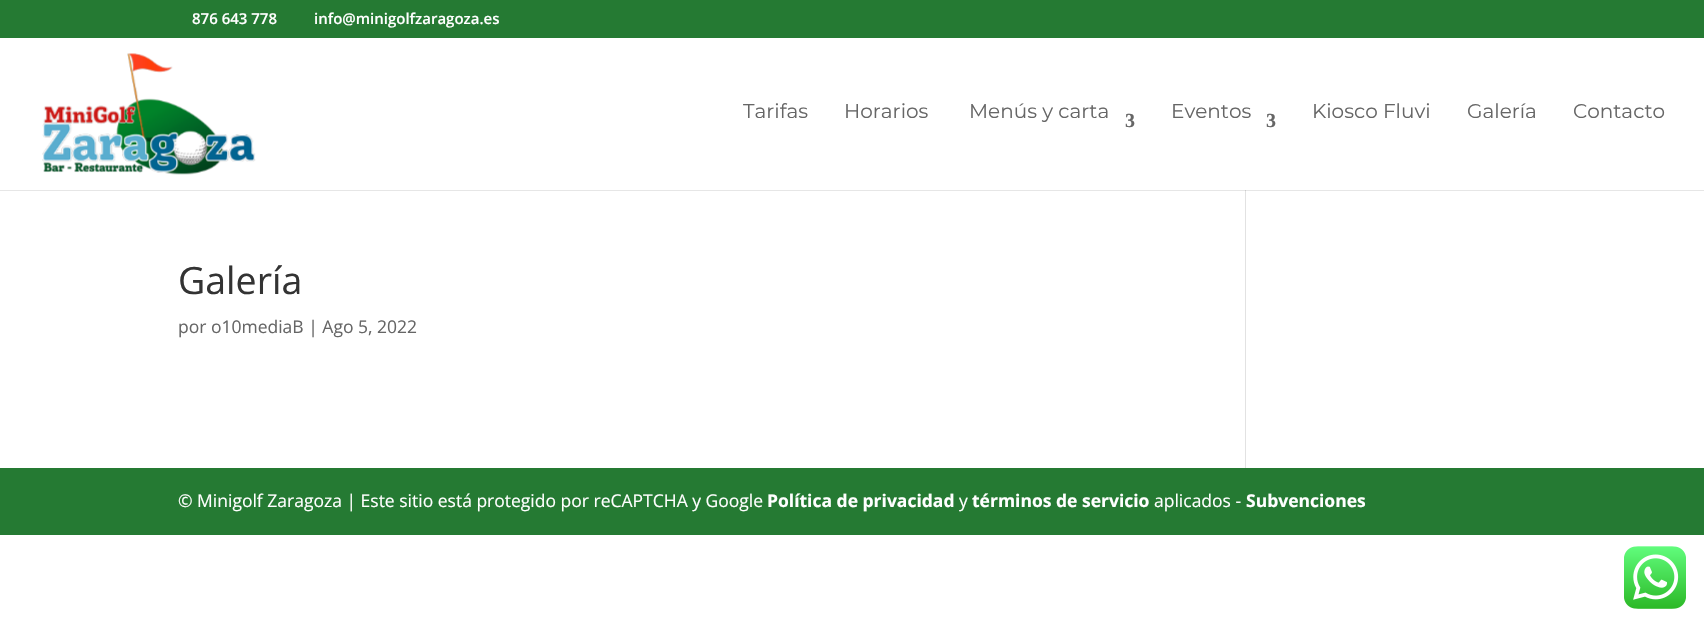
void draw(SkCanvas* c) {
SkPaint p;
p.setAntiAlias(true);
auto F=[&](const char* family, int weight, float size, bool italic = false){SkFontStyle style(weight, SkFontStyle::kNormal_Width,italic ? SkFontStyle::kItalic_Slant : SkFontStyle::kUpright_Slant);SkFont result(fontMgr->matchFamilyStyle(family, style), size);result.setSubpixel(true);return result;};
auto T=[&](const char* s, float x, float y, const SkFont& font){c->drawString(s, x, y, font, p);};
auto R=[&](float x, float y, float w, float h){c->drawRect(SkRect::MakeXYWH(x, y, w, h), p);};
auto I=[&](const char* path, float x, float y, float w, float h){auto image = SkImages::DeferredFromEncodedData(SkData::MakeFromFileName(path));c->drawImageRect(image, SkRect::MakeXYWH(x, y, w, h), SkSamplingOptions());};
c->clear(0xffffffff);
p.setColor(0xffe6e6e6);
R(0,190,1704,1);
p.setColor(0xff257a33);
R(0,0,1704,38);
auto f1 = F("Open Sans",600,15);
p.setColor(0xffffffff);
T("876 643 778",192,24,f1);
T("info@minigolfzaragoza.es",314,24,f1);
p.setColor(0xffe2e2e2);
R(1245,189,1,279);
p.setColor(0xffffffff);
R(1245,189,1,1);
I("1.png",42,53,214,122);
auto f2 = F("Montserrat",400,20);
p.setColor(0xff666666);
T("Tarifas",743,118,f2);
T("Horarios",844,118,f2);
T("Menús y carta",969,118,f2);
auto f3 = F("Liberation Serif",700,20);
T("3",1125,127,f3);
T("Eventos",1171,118,f2);
T("3",1266,127,f3);
T("Kiosco Fluvi",1312,118,f2);
T("Galería",1467,118,f2);
T("Contacto",1573,118,f2);
auto f4 = F("Open Sans",400,37.5);
p.setColor(0xff333333);
T("Galería",178,294,f4);
auto f5 = F("Open Sans",400,17.5);
p.setColor(0xff666666);
T("por o10mediaB | Ago 5, 2022",178,333,f5);
p.setColor(0xffcbcbcb);
R(1245,190,1,1);
p.setColor(0xff257a33);
R(0,468,1704,67);
p.setColor(0xffffffff);
T("© Minigolf Zaragoza | Este sitio está protegido por reCAPTCHA y Google",178,507,f5);
auto f6 = F("Open Sans",700,17.5);
T("Política de privacidad",767,507,f6);
T("y",959,507,f5);
T("términos de servicio",972,507,f6);
T("aplicados -",1154,507,f5);
T("Subvenciones",1246,507,f6);
I("2.png",1624,546,62,63);
}
